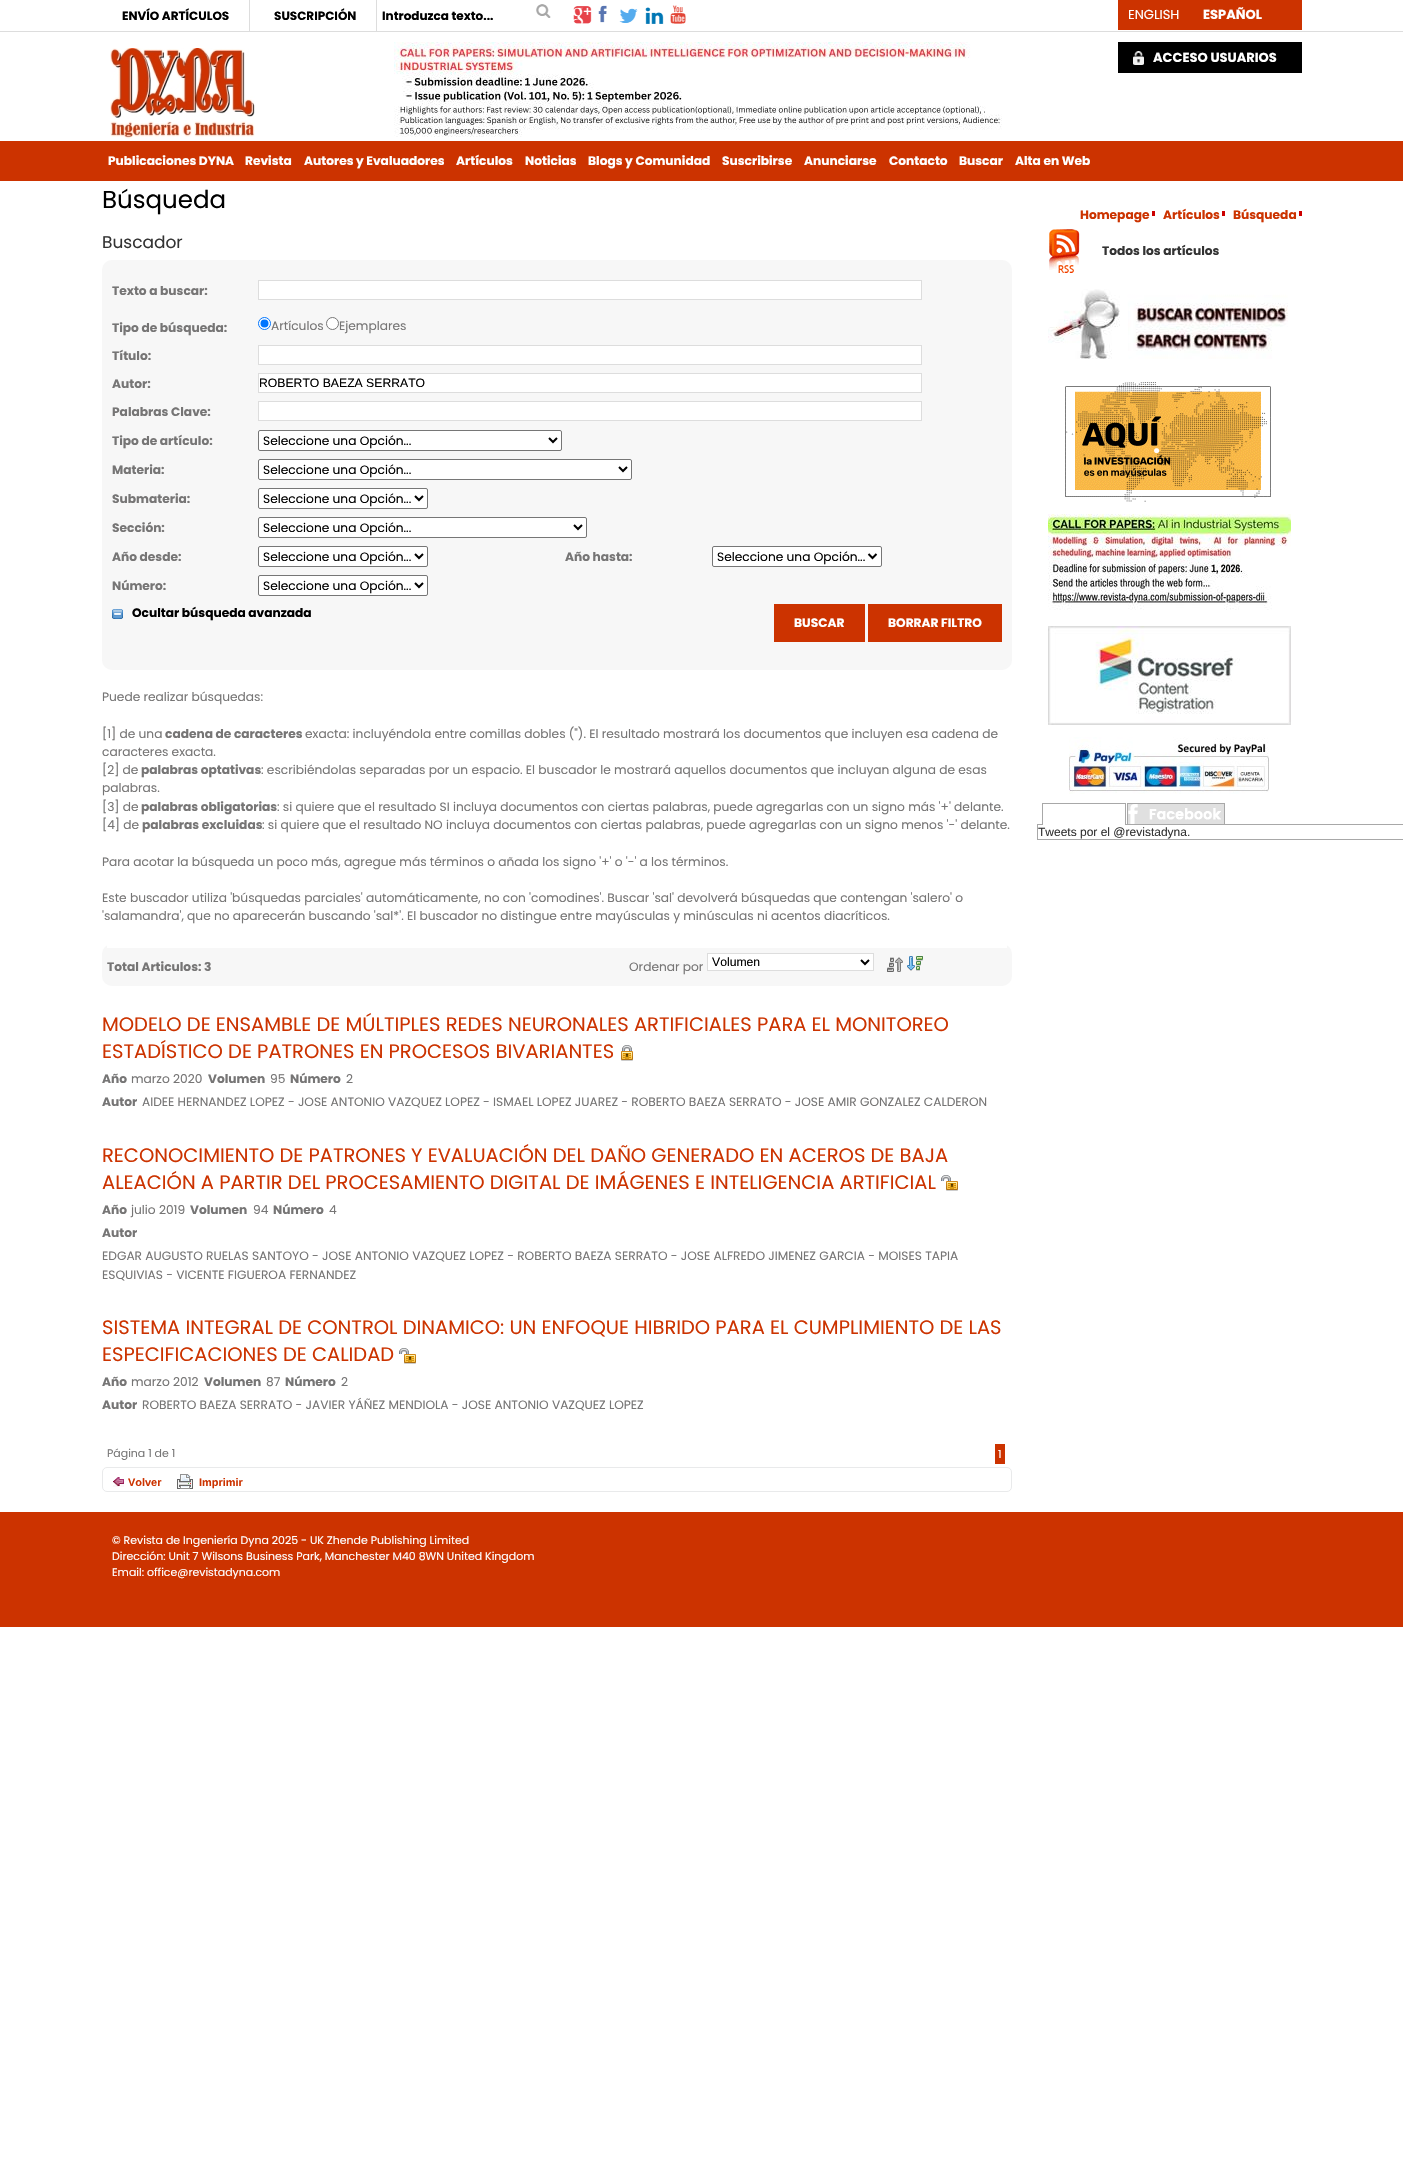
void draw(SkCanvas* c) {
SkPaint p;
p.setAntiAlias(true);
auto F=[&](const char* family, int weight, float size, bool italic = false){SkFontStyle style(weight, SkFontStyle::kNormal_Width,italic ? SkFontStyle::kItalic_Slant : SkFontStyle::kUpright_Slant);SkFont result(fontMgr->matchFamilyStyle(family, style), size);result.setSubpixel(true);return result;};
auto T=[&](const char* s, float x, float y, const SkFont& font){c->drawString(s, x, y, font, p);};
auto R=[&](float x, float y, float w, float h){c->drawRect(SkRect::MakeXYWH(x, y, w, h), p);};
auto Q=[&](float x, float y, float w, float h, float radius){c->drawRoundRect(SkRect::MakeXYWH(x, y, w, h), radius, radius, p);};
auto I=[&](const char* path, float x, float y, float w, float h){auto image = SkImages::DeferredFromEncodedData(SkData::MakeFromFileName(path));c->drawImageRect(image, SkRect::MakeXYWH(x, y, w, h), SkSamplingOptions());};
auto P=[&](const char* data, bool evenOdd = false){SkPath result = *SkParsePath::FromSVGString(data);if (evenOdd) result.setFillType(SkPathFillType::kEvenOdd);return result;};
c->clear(0xffffffff);
p.setColor(0xffdddddd);
R(0,31,1403,1);
R(249,0,1,31);
auto f1 = F("Poppins",700,12);
p.setColor(0xff000000);
T("ENVÍO ARTÍCULOS",122,20,f1);
p.setColor(0xffdddddd);
R(376,0,1,31);
p.setColor(0xff000000);
T("SUSCRIPCIÓN",274,20,f1);
T("Introduzca texto...",382,20,f1);
I("1.png",536,4,15,14);
I("2.png",573,6,19,18);
I("3.png",598,5,9,18);
I("4.png",619,8,19,15);
I("5.png",645,7,19,17);
I("6.png",670,5,16,19);
p.setColor(0xffcc3300);
R(1118,0,184,30);
auto f2 = F("Poppins",400,13);
p.setColor(0xffffffff);
T("ENGLISH",1128,19,f2);
auto f3 = F("Poppins",700,13);
T("ESPAÑOL",1203,19,f3);
p.setColor(0xff000000);
R(1118,42,184,31);
I("7.png",1133,51,11,14);
p.setColor(0xffffffff);
T("ACCESO USUARIOS",1153,62,f3);
I("8.png",110,48,145,91);
I("9.png",394,42,608,95);
p.setColor(0xffcc3300);
R(0,141,1403,40);
auto f4 = F("Poppins",700,12.2);
p.setColor(0xffffffff);
T("Publicaciones DYNA",108,165,f4);
T("Revista",245,165,f4);
T("Autores y Evaluadores",304,165,f4);
T("Artículos",456,165,f4);
T("Noticias",525,165,f4);
T("Blogs y Comunidad",588,165,f4);
T("Suscribirse",722,165,f4);
T("Anunciarse",804,165,f4);
T("Contacto",889,165,f4);
T("Buscar",959,165,f4);
T("Alta en Web",1015,165,f4);
auto f5 = F("Poppins",400,24.5);
p.setColor(0xff000000);
T("Búsqueda",102,208,f5);
p.setColor(0xffcc3300);
T("Homepage",1080,219,f4);
p.setColor(0xffcc0000);
R(1152,211,3,5);
p.setColor(0xffcc3300);
T("Artículos",1163,219,f4);
p.setColor(0xffcc0000);
R(1222,211,3,5);
p.setColor(0xffcc3300);
T("Búsqueda",1233,219,f4);
p.setColor(0xffcc0000);
R(1299,211,3,5);
auto f6 = F("Poppins",400,17);
p.setColor(0xff333333);
T("Buscador",102,248,f6);
p.setColor(0xfff7f7f7);
Q(102,260,910,410,10);
p.setColor(0xff767575);
T("Texto a buscar:",112,295,f4);
p.setColor(0xffffffff);
c->drawRect(SkRect::MakeXYWH(258.5,280.5,663,19),p);
p.setStroke(true);
p.setStrokeWidth(1);
p.setColor(0xffdddddd);
c->drawRect(SkRect::MakeXYWH(258.5,280.5,663,19),p);
p.setStroke(false);
p.setColor(0xff767575);
T("Tipo de búsqueda:",112,332,f4);
p.setColor(0xffffffff);
c->drawCircle(264.5,323.5,6,p);
p.setStroke(true);
p.setColor(0xff0075ff);
c->drawCircle(264.5,323.5,6,p);
p.setStroke(false);
c->drawCircle(264.5,323.5,4,p);
auto f7 = F("Poppins",400,12.2);
p.setColor(0xff767575);
T("Artículos",271,330,f7);
p.setColor(0xffffffff);
c->drawCircle(332.5,323.5,6,p);
p.setStroke(true);
p.setColor(0xff767676);
c->drawCircle(332.5,323.5,6,p);
p.setStroke(false);
p.setColor(0xff767575);
T("Ejemplares",339,330,f7);
T("Título:",112,360,f4);
p.setColor(0xffffffff);
c->drawRect(SkRect::MakeXYWH(258.5,345.5,663,19),p);
p.setStroke(true);
p.setColor(0xffdddddd);
c->drawRect(SkRect::MakeXYWH(258.5,345.5,663,19),p);
p.setStroke(false);
p.setColor(0xff767575);
T("Autor:",112,388,f4);
p.setColor(0xffffffff);
c->drawRect(SkRect::MakeXYWH(258.5,373.5,663,19),p);
p.setStroke(true);
p.setColor(0xffdddddd);
c->drawRect(SkRect::MakeXYWH(258.5,373.5,663,19),p);
auto f8 = F("Liberation Sans",400,12.2);
p.setStroke(false);
p.setColor(0xff000000);
T("ROBERTO BAEZA SERRATO",259,387,f8);
p.setColor(0xff767575);
T("Palabras Clave:",112,416,f4);
p.setColor(0xffffffff);
c->drawRect(SkRect::MakeXYWH(258.5,401.5,663,19),p);
p.setStroke(true);
p.setColor(0xffdddddd);
c->drawRect(SkRect::MakeXYWH(258.5,401.5,663,19),p);
p.setStroke(false);
p.setColor(0xff767575);
T("Tipo de artículo:",112,445,f4);
p.setColor(0xffffffff);
c->drawRoundRect(SkRect::MakeXYWH(258.5,430.5,303,20),1.5,1.5,p);
p.setStroke(true);
p.setColor(0xff767676);
c->drawRoundRect(SkRect::MakeXYWH(258.5,430.5,303,20),1.5,1.5,p);
p.setStrokeWidth(2);
p.setColor(0xff000000);
c->drawPath(P("M549 438l4 4l4-4"),p);
p.setStroke(false);
T("Seleccione una Opción...",263,445,f7);
p.setColor(0xff767575);
T("Materia:",112,474,f4);
p.setColor(0xffffffff);
c->drawRoundRect(SkRect::MakeXYWH(258.5,459.5,373,20),1.5,1.5,p);
p.setStroke(true);
p.setStrokeWidth(1);
p.setColor(0xff767676);
c->drawRoundRect(SkRect::MakeXYWH(258.5,459.5,373,20),1.5,1.5,p);
p.setStrokeWidth(2);
p.setColor(0xff000000);
c->drawPath(P("M619 467l4 4l4-4"),p);
p.setStroke(false);
T("Seleccione una Opción...",263,474,f7);
p.setColor(0xff767575);
T("Submateria:",112,503,f4);
p.setColor(0xffffffff);
c->drawRoundRect(SkRect::MakeXYWH(258.5,488.5,169,20),1.5,1.5,p);
p.setStroke(true);
p.setStrokeWidth(1);
p.setColor(0xff767676);
c->drawRoundRect(SkRect::MakeXYWH(258.5,488.5,169,20),1.5,1.5,p);
p.setStrokeWidth(2);
p.setColor(0xff000000);
c->drawPath(P("M415 496l4 4l4-4"),p);
p.setStroke(false);
T("Seleccione una Opción...",263,503,f7);
p.setColor(0xff767575);
T("Sección:",112,532,f4);
p.setColor(0xffffffff);
c->drawRoundRect(SkRect::MakeXYWH(258.5,517.5,328,20),1.5,1.5,p);
p.setStroke(true);
p.setStrokeWidth(1);
p.setColor(0xff767676);
c->drawRoundRect(SkRect::MakeXYWH(258.5,517.5,328,20),1.5,1.5,p);
p.setStrokeWidth(2);
p.setColor(0xff000000);
c->drawPath(P("M574 525l4 4l4-4"),p);
p.setStroke(false);
T("Seleccione una Opción...",263,532,f7);
p.setColor(0xff767575);
T("Año desde:",112,561,f4);
p.setColor(0xffffffff);
c->drawRoundRect(SkRect::MakeXYWH(258.5,546.5,169,20),1.5,1.5,p);
p.setStroke(true);
p.setStrokeWidth(1);
p.setColor(0xff767676);
c->drawRoundRect(SkRect::MakeXYWH(258.5,546.5,169,20),1.5,1.5,p);
p.setStrokeWidth(2);
p.setColor(0xff000000);
c->drawPath(P("M415 554l4 4l4-4"),p);
p.setStroke(false);
T("Seleccione una Opción...",263,561,f7);
p.setColor(0xff767575);
T("Año hasta:",565,561,f4);
p.setColor(0xffffffff);
c->drawRoundRect(SkRect::MakeXYWH(712.5,546.5,169,20),1.5,1.5,p);
p.setStroke(true);
p.setStrokeWidth(1);
p.setColor(0xff767676);
c->drawRoundRect(SkRect::MakeXYWH(712.5,546.5,169,20),1.5,1.5,p);
p.setStrokeWidth(2);
p.setColor(0xff000000);
c->drawPath(P("M868.5 554l4 4l4-4"),p);
p.setStroke(false);
T("Seleccione una Opción...",717,561,f7);
p.setColor(0xff767575);
T("Número:",112,590,f4);
p.setColor(0xffffffff);
c->drawRoundRect(SkRect::MakeXYWH(258.5,575.5,169,20),1.5,1.5,p);
p.setStroke(true);
p.setStrokeWidth(1);
p.setColor(0xff767676);
c->drawRoundRect(SkRect::MakeXYWH(258.5,575.5,169,20),1.5,1.5,p);
p.setStrokeWidth(2);
p.setColor(0xff000000);
c->drawPath(P("M415 583l4 4l4-4"),p);
p.setStroke(false);
T("Seleccione una Opción...",263,590,f7);
I("10.png",112,609,11,10);
T("Ocultar búsqueda avanzada",132,617,f4);
p.setColor(0xffcc3300);
R(774,604,91,38);
p.setColor(0xffffffff);
T("BUSCAR",794,627,f4);
p.setColor(0xffcc3300);
R(868,604,134,38);
p.setColor(0xffffffff);
T("BORRAR FILTRO",888,627,f4);
p.setColor(0xff767575);
T("Puede realizar búsquedas:",102,701,f7);
T("[1] de una",102,738,f7);
T("cadena de caracteres",165,738,f4);
T("exacta: incluyéndola entre comillas dobles (\"). El resultado mostrará los documentos que incluyen esa cadena de",305,738,f7);
T("caracteres exacta.",102,756,f7);
T("[2] de",102,774,f7);
T("palabras optativas",141,774,f4);
T(": escribiéndolas separadas por un espacio. El buscador le mostrará aquellos documentos que incluyan alguna de esas",261,774,f7);
T("palabras.",102,792,f7);
T("[3] de",102,811,f7);
T("palabras obligatorias",141,811,f4);
T(": si quiere que el resultado SI incluya documentos con ciertas palabras, puede agregarlas con un signo más '+' delante.",277,811,f7);
T("[4] de",102,829,f7);
T("palabras excluidas",142,829,f4);
T(": si quiere que el resultado NO incluya documentos con ciertas palabras, puede agregarlas con un signo menos '-' delante.",262,829,f7);
T("Para acotar la búsqueda un poco más, agregue más términos o añada los signo '+' o '-' a los términos.",102,866,f7);
T("Este buscador utiliza 'búsquedas parciales' automáticamente, no con 'comodines'. Buscar 'sal' devolverá búsquedas que contengan 'salero' o",102,902,f7);
T("'salamandra', que no aparecerán buscando 'sal*'. El buscador no distingue entre mayúsculas y minúsculas ni acentos diacríticos.",102,920,f7);
p.setColor(0xfff7f7f7);
Q(102,944,910,42,10);
p.setColor(0xffffffff);
R(107,944,900,4);
p.setColor(0xff767575);
T("Total Articulos: 3",107,971,f4);
T("Ordenar por",629,971,f7);
p.setColor(0xffffffff);
c->drawRect(SkRect::MakeXYWH(707.5,953.5,166,17),p);
p.setStroke(true);
p.setStrokeWidth(1);
p.setColor(0xffdddddd);
c->drawRect(SkRect::MakeXYWH(707.5,953.5,166,17),p);
p.setStrokeWidth(2);
p.setColor(0xff000000);
c->drawPath(P("M861 960l4 4l4-4"),p);
p.setStroke(false);
T("Volumen",712,966,f8);
I("11.png",887,957,16,15);
I("12.png",907,956,16,15);
auto f9 = F("Poppins",400,19.5);
p.setColor(0xffcc3300);
T("MODELO DE ENSAMBLE DE MÚLTIPLES REDES NEURONALES ARTIFICIALES PARA EL MONITOREO",102,1031,f9);
T("ESTADÍSTICO DE PATRONES EN PROCESOS BIVARIANTES",102,1058,f9);
I("13.png",621,1045,12,16);
p.setColor(0xff767575);
T("Año",102,1083,f4);
T("marzo 2020",131,1083,f7);
T("Volumen",208,1083,f4);
T("95",270,1083,f7);
T("Número",290,1083,f4);
T("2",346,1083,f7);
T("Autor",102,1106,f4);
T("AIDEE HERNANDEZ LOPEZ - JOSE ANTONIO VAZQUEZ LOPEZ - ISMAEL LOPEZ JUAREZ - ROBERTO BAEZA SERRATO - JOSE AMIR GONZALEZ CALDERON",142,1106,f7);
p.setColor(0xffcc3300);
T("RECONOCIMIENTO DE PATRONES Y EVALUACIÓN DEL DAÑO GENERADO EN ACEROS DE BAJA",102,1162,f9);
T("ALEACIÓN A PARTIR DEL PROCESAMIENTO DIGITAL DE IMÁGENES E INTELIGENCIA ARTIFICIAL",102,1189,f9);
I("14.png",941,1175,17,16);
p.setColor(0xff767575);
T("Año",102,1214,f4);
T("julio 2019",131,1214,f7);
T("Volumen",190,1214,f4);
T("94",253,1214,f7);
T("Número",273,1214,f4);
T("4",329,1214,f7);
T("Autor",102,1237,f4);
T("EDGAR AUGUSTO RUELAS SANTOYO - JOSE ANTONIO VAZQUEZ LOPEZ - ROBERTO BAEZA SERRATO - JOSE ALFREDO JIMENEZ GARCIA - MOISES TAPIA",102,1260,f7);
T("ESQUIVIAS - VICENTE FIGUEROA FERNANDEZ",102,1279,f7);
p.setColor(0xffcc3300);
T("SISTEMA INTEGRAL DE CONTROL DINAMICO: UN ENFOQUE HIBRIDO PARA EL CUMPLIMIENTO DE LAS",102,1334,f9);
T("ESPECIFICACIONES DE CALIDAD",102,1361,f9);
I("14.png",399,1348,17,16);
p.setColor(0xff767575);
T("Año",102,1386,f4);
T("marzo 2012",131,1386,f7);
T("Volumen",204,1386,f4);
T("87",266,1386,f7);
T("Número",285,1386,f4);
T("2",341,1386,f7);
T("Autor",102,1409,f4);
T("ROBERTO BAEZA SERRATO - JAVIER YÁÑEZ MENDIOLA - JOSE ANTONIO VAZQUEZ LOPEZ",142,1409,f7);
auto f10 = F("Poppins",400,10.95);
T("Página 1 de 1",107,1457,f10);
p.setColor(0xffcc3300);
R(995,1444,10,20);
p.setColor(0xffffffff);
T("1",998,1458,f10);
p.setStroke(true);
p.setStrokeWidth(1);
p.setColor(0xffe9eaeb);
c->drawRoundRect(SkRect::MakeXYWH(102.5,1467.5,909,24),4.5,4.5,p);
I("15.png",113,1477,11,10);
auto f11 = F("Liberation Sans",700,10.95);
p.setStroke(false);
p.setColor(0xffcc3300);
T("Volver",128,1486,f11);
I("16.png",177,1474,16,15);
T("Imprimir",199,1486,f11);
I("17.png",1049,229,31,44);
p.setColor(0xff333333);
T("Todos los artículos",1102,255,f4);
I("18.png",1048,289,240,70);
I("19.png",1065,382,206,120);
I("20.png",1048,514,243,96);
I("21.png",1048,626,243,99);
I("22.png",1069,737,200,57);
p.setColor(0xffa8a8a8);
R(1037,824,5,1);
R(1042,803,84,1);
R(1125,803,1,22);
R(1042,803,1,22);
R(1126,824,1,1);
p.setColor(0xffe0e0e0);
c->drawRect(SkRect::MakeXYWH(1127.5,803.5,97,21),p);
p.setStroke(true);
p.setColor(0xffa8a8a8);
c->drawRect(SkRect::MakeXYWH(1127.5,803.5,97,21),p);
I("23.png",1128,804,93,20);
p.setStroke(false);
R(1225,824,178,1);
R(1037,839,366,1);
R(1037,825,1,15);
auto f12 = F("Liberation Sans",400,12);
p.setColor(0xff333333);
T("Tweets por el @revistadyna.",1038,836,f12);
p.setColor(0xffcc3300);
R(0,1512,1403,115);
p.setColor(0xffffffff);
T("© Revista de Ingeniería Dyna 2025 - UK Zhende Publishing Limited",112,1544,f10);
T("Dirección: Unit 7 Wilsons Business Park, Manchester M40 8WN United Kingdom",112,1560,f10);
T("Email: office@revistadyna.com",112,1576,f10);
}
